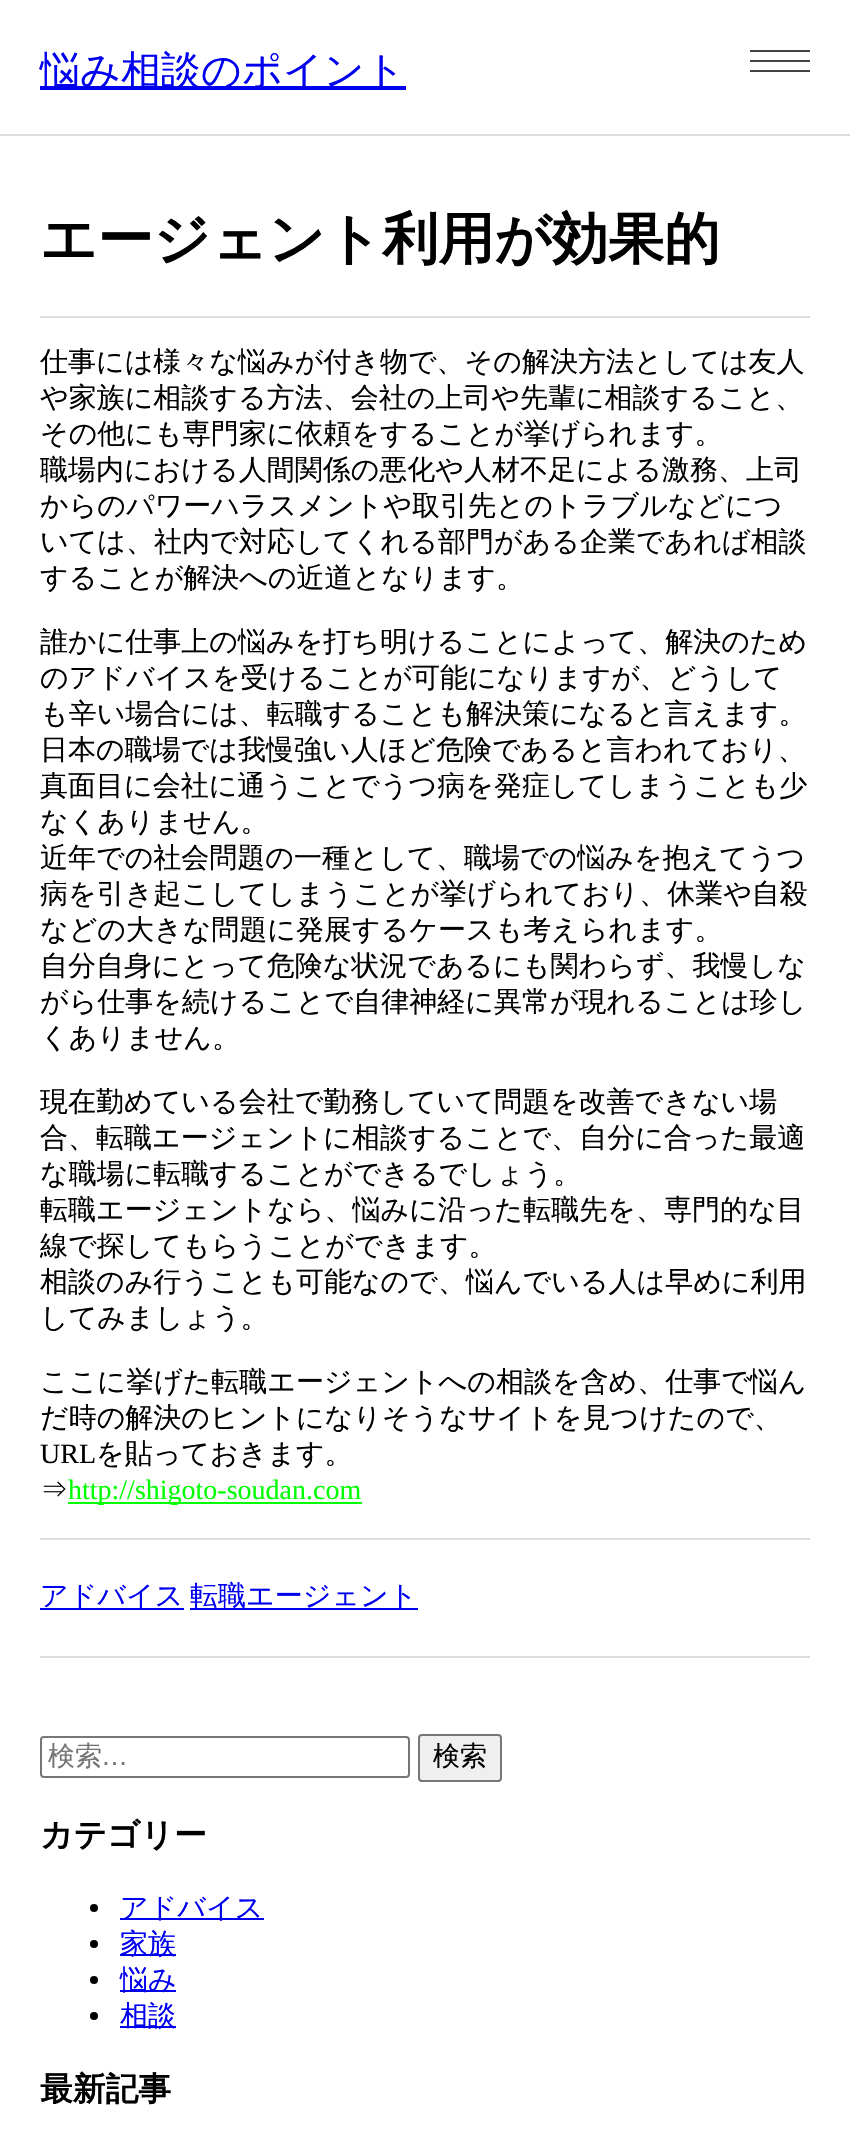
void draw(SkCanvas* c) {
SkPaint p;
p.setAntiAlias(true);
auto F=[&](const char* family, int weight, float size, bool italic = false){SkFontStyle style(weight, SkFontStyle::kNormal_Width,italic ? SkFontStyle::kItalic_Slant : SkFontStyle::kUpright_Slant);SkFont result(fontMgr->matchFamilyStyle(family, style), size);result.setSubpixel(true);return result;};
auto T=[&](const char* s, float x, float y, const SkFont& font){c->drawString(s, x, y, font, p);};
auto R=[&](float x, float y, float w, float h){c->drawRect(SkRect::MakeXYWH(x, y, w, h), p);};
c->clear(0xffffffff);
p.setColor(0xffdddddd);
R(0,134,850,2);
p.setColor(0xff0000ee);
R(40,86,366,4);
auto f1 = F("WenQuanYi Zen Hei",500,40);
T("悩み相談のポイント",40,84,f1);
p.setColor(0xff444444);
R(750,60,60,2);
R(750,50,60,2);
R(750,70,60,2);
p.setColor(0xffdddddd);
R(40,1656,770,2);
R(40,316,770,2);
auto f2 = F("WenQuanYi Zen Hei",700,56);
p.setColor(0xff000000);
T("エージェント利用が効果的",40,258,f2);
auto f3 = F("WenQuanYi Zen Hei",500,28);
T("仕事には様々な悩みが付き物で、その解決方法としては友人",40,371,f3);
T("や家族に相談する方法、会社の上司や先輩に相談すること、",40,407,f3);
T("その他にも専門家に依頼をすることが挙げられます。",40,443,f3);
T("職場内における人間関係の悪化や人材不足による激務、上司",40,479,f3);
T("からのパワーハラスメントや取引先とのトラブルなどにつ",40,515,f3);
T("いては、社内で対応してくれる部門がある企業であれば相談",40,551,f3);
T("することが解決への近道となります。",40,587,f3);
T("誰かに仕事上の悩みを打ち明けることによって、解決のため",40,651,f3);
T("のアドバイスを受けることが可能になりますが、どうして",40,687,f3);
T("も辛い場合には、転職することも解決策になると言えます。",40,723,f3);
T("日本の職場では我慢強い人ほど危険であると言われており、",40,759,f3);
T("真面目に会社に通うことでうつ病を発症してしまうことも少",40,795,f3);
T("なくありません。",40,831,f3);
T("近年での社会問題の一種として、職場での悩みを抱えてうつ",40,867,f3);
T("病を引き起こしてしまうことが挙げられており、休業や自殺",40,903,f3);
T("などの大きな問題に発展するケースも考えられます。",40,939,f3);
T("自分自身にとって危険な状況であるにも関わらず、我慢しな",40,975,f3);
T("がら仕事を続けることで自律神経に異常が現れることは珍し",40,1011,f3);
T("くありません。",40,1047,f3);
T("現在勤めている会社で勤務していて問題を改善できない場",40,1111,f3);
T("合、転職エージェントに相談することで、自分に合った最適",40,1147,f3);
T("な職場に転職することができるでしょう。",40,1183,f3);
T("転職エージェントなら、悩みに沿った転職先を、専門的な目",40,1219,f3);
T("線で探してもらうことができます。",40,1255,f3);
T("相談のみ行うことも可能なので、悩んでいる人は早めに利用",40,1291,f3);
T("してみましょう。",40,1327,f3);
T("ここに挙げた転職エージェントへの相談を含め、仕事で悩ん",40,1391,f3);
T("だ時の解決のヒントになりそうなサイトを見つけたので、",40,1427,f3);
auto f4 = F("Liberation Serif",400,28);
T("URL",40,1463,f4);
T("を貼っておきます。",96,1463,f3);
T("⇒",40,1499,f3);
p.setColor(0xff00ff00);
R(68,1502,294,2);
T("http://shigoto-soudan.com",68,1499,f4);
p.setColor(0xffdddddd);
R(40,1538,770,2);
p.setColor(0xff0000ee);
R(40,1608,144,2);
T("アドバイス",40,1605,f3);
R(190,1608,228,2);
T("転職エージェント",190,1605,f3);
p.setStroke(true);
p.setStrokeWidth(2);
p.setColor(0xff767676);
c->drawRoundRect(SkRect::MakeXYWH(41,1737,368,40),3,3,p);
auto f5 = F("WenQuanYi Zen Hei",500,27);
p.setStroke(false);
p.setColor(0xff757575);
T("検索",48,1765,f5);
auto f6 = F("Liberation Sans",400,27);
T("…",101,1765,f6);
p.setColor(0xffefefef);
c->drawRoundRect(SkRect::MakeXYWH(419,1735,82,46),3,3,p);
p.setStroke(true);
p.setColor(0xff767676);
c->drawRoundRect(SkRect::MakeXYWH(419,1735,82,46),3,3,p);
p.setStroke(false);
p.setColor(0xff000000);
T("検索",433,1765,f5);
auto f7 = F("WenQuanYi Zen Hei",700,32.75);
T("カテゴリー",40,1846,f7);
c->drawCircle(94,1908,4,p);
p.setColor(0xff0000ee);
R(120,1918,144,2);
T("アドバイス",120,1917,f3);
p.setColor(0xff000000);
c->drawCircle(94,1944,4,p);
p.setColor(0xff0000ee);
R(120,1954,56,2);
T("家族",120,1953,f3);
p.setColor(0xff000000);
c->drawCircle(94,1980,4,p);
p.setColor(0xff0000ee);
R(120,1990,56,2);
T("悩み",120,1989,f3);
p.setColor(0xff000000);
c->drawCircle(94,2016,4,p);
p.setColor(0xff0000ee);
R(120,2026,56,2);
T("相談",120,2025,f3);
p.setColor(0xff000000);
T("最新記事",40,2100,f7);
}
